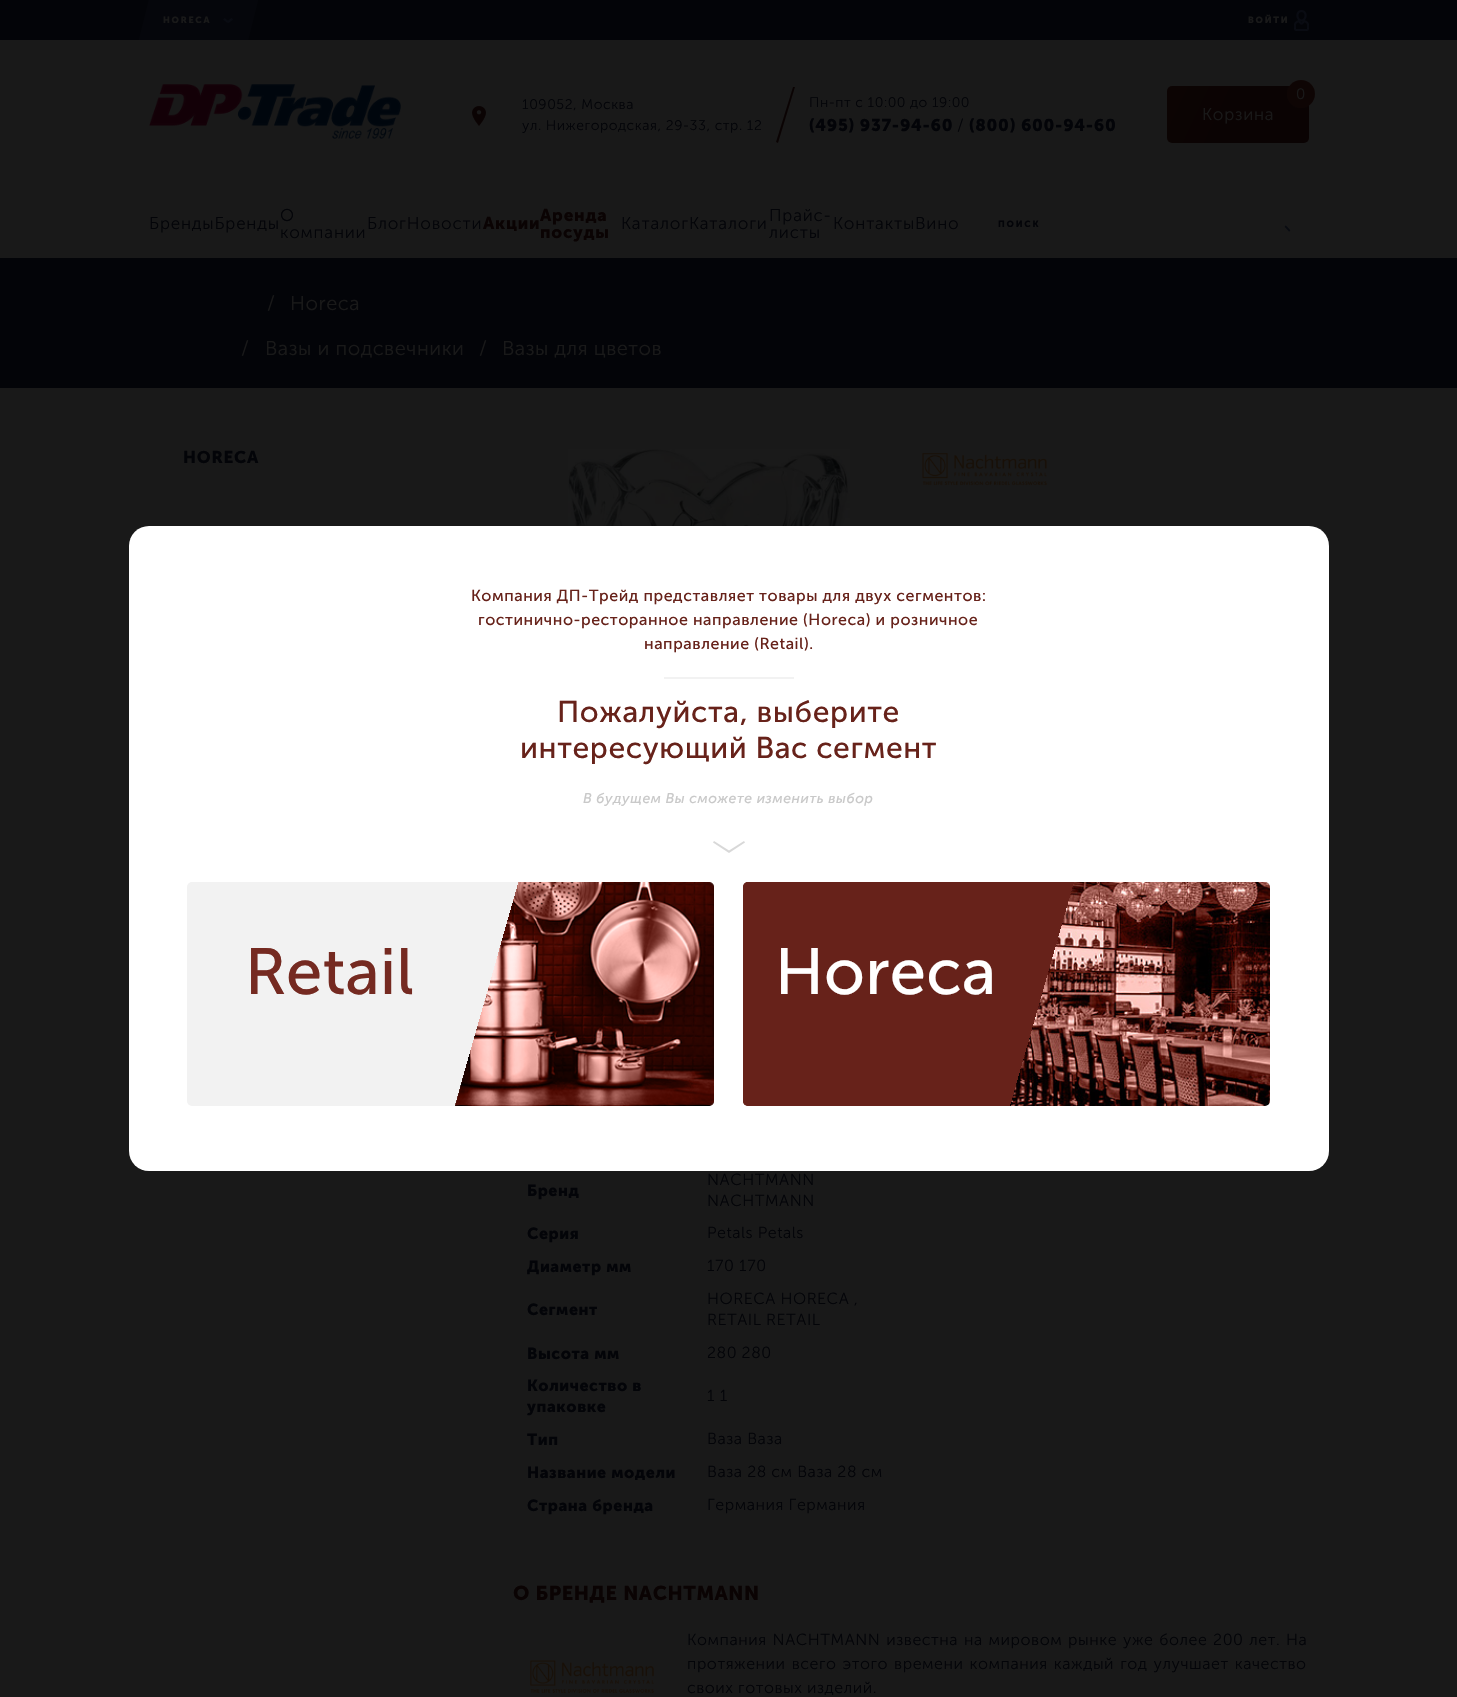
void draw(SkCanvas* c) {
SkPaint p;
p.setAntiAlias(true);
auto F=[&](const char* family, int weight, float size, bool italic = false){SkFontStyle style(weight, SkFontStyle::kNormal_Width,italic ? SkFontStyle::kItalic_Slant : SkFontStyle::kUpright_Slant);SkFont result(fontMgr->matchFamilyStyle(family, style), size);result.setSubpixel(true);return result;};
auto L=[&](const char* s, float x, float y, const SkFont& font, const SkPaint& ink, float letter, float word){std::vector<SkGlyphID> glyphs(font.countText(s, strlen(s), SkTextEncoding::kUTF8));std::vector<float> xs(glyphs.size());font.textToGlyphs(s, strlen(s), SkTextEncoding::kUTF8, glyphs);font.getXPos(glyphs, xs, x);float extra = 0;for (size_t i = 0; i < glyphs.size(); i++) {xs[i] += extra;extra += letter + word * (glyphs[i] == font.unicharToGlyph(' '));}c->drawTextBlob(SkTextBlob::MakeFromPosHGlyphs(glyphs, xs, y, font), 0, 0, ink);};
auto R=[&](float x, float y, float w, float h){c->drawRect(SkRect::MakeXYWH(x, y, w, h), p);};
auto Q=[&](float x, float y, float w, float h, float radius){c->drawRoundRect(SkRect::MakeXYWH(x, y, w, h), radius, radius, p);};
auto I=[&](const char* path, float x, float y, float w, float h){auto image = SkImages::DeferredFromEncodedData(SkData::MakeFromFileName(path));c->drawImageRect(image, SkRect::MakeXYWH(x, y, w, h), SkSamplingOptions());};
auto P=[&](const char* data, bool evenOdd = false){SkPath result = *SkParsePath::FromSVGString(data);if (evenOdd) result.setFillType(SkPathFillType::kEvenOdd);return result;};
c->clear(0xff191919);
p.setColor(0xff030408);
R(0,0,1457,40);
p.setColor(0xff05060b);
R(139,0,119,40);
p.setColor(0xff030408);
c->drawPath(P("M139 0h10l-10 40z"),p);
auto f1 = F("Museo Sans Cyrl",700,9);
p.setColor(0xff191919);
L("HORECA",163,23,f1,p,1.75,0);
I("1.png",223,18,10,5);
p.setColor(0xff030408);
c->drawPath(P("M258 40h-10l10-40z"),p);
p.setColor(0xff191919);
L("ВОЙТИ",1248,23,f1,p,1.75,0);
I("2.png",1294,10,15,21);
I("3.png",149,84,252,55);
I("4.png",472,106,14,20);
auto f2 = F("Museo Sans Cyrl",300,14);
p.setColor(0xff030408);
L("109052, Москва",522,109,f2,p,.55,0);
L("ул. Нижегородская, 29-33, стр. 12",522,130,f2,p,.55,0);
p.setColor(0xff0a0303);
c->drawPath(P("M793 87h2l-17 56l-2-1z"),p);
p.setColor(0xff030408);
L("Пн-пт с 10:00 до 19:00",809,107,f2,p,.55,0);
auto f3 = F("Museo Sans Cyrl",700,17);
L("(495) 937-94-60",809,131,f3,p,.7,0);
auto f4 = F("Museo Sans Cyrl",300,17);
L("/",957,131,f4,p,.7,0);
L("(800) 600-94-60",969,131,f3,p,.7,0);
{
const SkColor colors[] = {0xff0c0403,0xff0a0303,0xff0a0303};
const float stops[] = {0,.5,1};
const SkPoint ends[] = {{1169,82}, {1307,147}};
p.setShader(SkGradientShader::MakeLinear(ends, colors, stops, 3, SkTileMode::kClamp));
p.setAlpha(255);
}
Q(1167,86,142,57,5);
p.setShader(nullptr);
p.setColor(0xff0e0504);
c->drawCircle(1301,94,14,p);
auto f5 = F("Museo Sans Cyrl",300,15);
p.setColor(0xff191919);
L("0",1296,99,f5,p,.75,0);
L("Корзина",1202,120,f4,p,.75,0);
p.setColor(0xff030408);
L("БрендыБренды",149,229,f4,p,.8,0);
L("О",280,221,f4,p,.8,0);
L("компании",280,238,f4,p,.8,0);
L("БлогНовости",367,229,f4,p,.8,0);
p.setColor(0xff0a0303);
L("Акции",483,229,f3,p,.8,0);
L("Аренда",540,221,f3,p,.8,0);
L("посуды",540,238,f3,p,.8,0);
p.setColor(0xff030408);
L("КаталогКаталоги",621,229,f4,p,.8,0);
L("Прайс-",769,221,f4,p,.8,0);
L("листы",769,238,f4,p,.8,0);
L("КонтактыВино",833,229,f4,p,.8,0);
L("ПОИСК",998,227,f1,p,1.75,0);
I("5.png",1284,225,7,7);
R(0,258,1457,130);
auto f6 = F("Museo Sans Cyrl",300,20);
p.setColor(0xff191919);
L("/",267,310,f6,p,.55,0);
L("Horeca",290,310,f6,p,.55,0);
L("/",241,355,f6,p,.55,0);
L("Вазы и подсвечники",265,355,f6,p,.55,0);
L("/",479,355,f6,p,.55,0);
L("Вазы для цветов",502,355,f6,p,.55,0);
p.setColor(0xff030408);
L("HORECA",183,463,f3,p,.8,0);
I("6.png",922,452,125,34);
I("7.png",568,449,282,77);
auto f7 = F("Museo Sans Cyrl",700,16);
L("Бренд",527,1196,f7,p,.55,0);
auto f8 = F("Museo Sans Cyrl",300,16);
L("NACHTMANN",707,1185,f8,p,.55,0);
L("NACHTMANN",707,1206,f8,p,.55,0);
L("Серия",527,1239,f7,p,.55,0);
L("Petals Petals",707,1238,f8,p,.55,0);
L("Диаметр мм",527,1272,f7,p,.55,0);
L("170 170",707,1271,f8,p,.55,0);
L("Сегмент",527,1315,f7,p,.55,0);
L("HORECA HORECA ,",707,1304,f8,p,.55,0);
L("RETAIL RETAIL",707,1325,f8,p,.55,0);
L("Высота мм",527,1359,f7,p,.55,0);
L("280 280",707,1358,f8,p,.55,0);
L("Количество в",527,1391,f7,p,.55,0);
L("упаковке",527,1412,f7,p,.55,0);
L("1 1",707,1401,f8,p,.55,0);
L("Тип",527,1445,f7,p,.55,0);
L("Ваза Ваза",707,1444,f8,p,.55,0);
L("Название модели",527,1478,f7,p,.55,0);
L("Ваза 28 см Ваза 28 см",707,1477,f8,p,.55,0);
L("Страна бренда",527,1511,f7,p,.55,0);
L("Германия Германия",707,1510,f8,p,.55,0);
auto f9 = F("Museo Sans Cyrl",700,20);
p.setColor(0xff0a0303);
L("О БРЕНДЕ NACHTMANN",513,1600,f9,p,.55,0);
I("8.png",530,1660,124,33);
p.setColor(0xff030408);
L("Компания NACHTMANN известна на мировом рынке уже более 200 лет. На",687,1645,f8,p,.55,1.25);
L("протяжении всего этого времени компания каждый год улучшает качество",687,1669,f8,p,.55,1.5);
L("своих готовых изделий.",687,1693,f8,p,.55,0);
p.setColor(0xffffffff);
Q(129,526,1200,645,20);
auto f10 = F("Museo Sans Cyrl",400,16);
p.setColor(0xff67221a);
L("Компания ДП-Трейд представляет товары для двух сегментов:",471,601,f10,p,.55,0);
L("гостинично-ресторанное направление (Horeca) и розничное",478,625,f10,p,.55,0);
L("направление (Retail).",644,649,f10,p,.55,0);
p.setColor(0xfff2f2f2);
R(664,677,130,2);
auto f11 = F("Museo Sans Cyrl",400,30);
p.setColor(0xff67221a);
L("Пожалуйста, выберите",557,722,f11,p,.6,0);
L("интересующий Вас сегмент",520,758,f11,p,.6,0);
auto f12 = F("Museo Sans Cyrl",400,14,true);
p.setColor(0xffc9c9c9);
L("В будущем Вы сможете изменить выбор",583,803,f12,p,.55,0);
p.setColor(0xffd8d8d8);
c->drawPath(P("M729 853l-16-10.5l1-1.5l15 9.5l15-9.5l1 1.5z"),p);
I("9.png",455,882,259,224);
{
const SkColor colors[] = {0xfff2f2f2,0x00f2f2f2};
const float stops[] = {.56,.56};
const SkPoint ends[] = {{177,916}, {725,1072}};
p.setShader(SkGradientShader::MakeLinear(ends, colors, stops, 2, SkTileMode::kClamp));
p.setAlpha(255);
}
Q(187,882,528,224,5);
auto f13 = F("Museo Sans Cyrl",400,65);
p.setShader(nullptr);
p.setColor(0xff752a21);
L("Retail",245,994,f13,p,.25,0);
I("10.png",743,882,527,224);
{
const SkColor colors[] = {0xff67221a,0x0067221a};
const float stops[] = {.56,.56};
const SkPoint ends[] = {{733,916}, {1280,1072}};
p.setShader(SkGradientShader::MakeLinear(ends, colors, stops, 2, SkTileMode::kClamp));
p.setAlpha(255);
}
Q(743,882,527,224,5);
p.setShader(nullptr);
p.setColor(0xffffffff);
L("Horeca",775,994,f13,p,.25,0);
}
